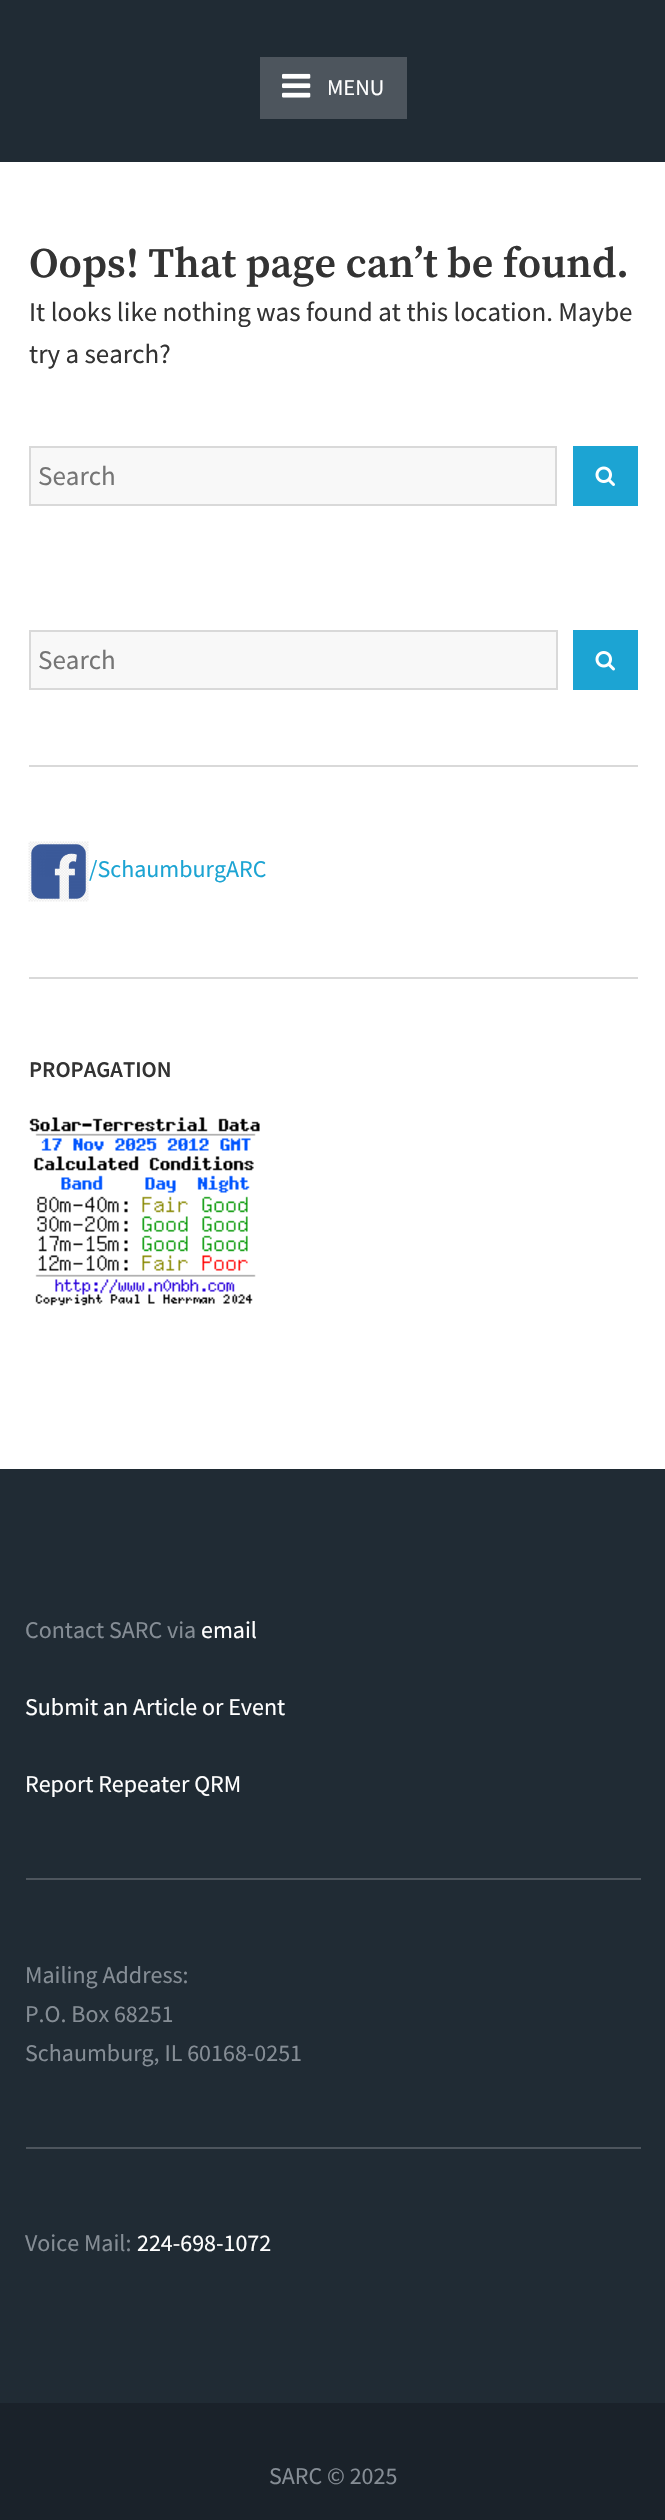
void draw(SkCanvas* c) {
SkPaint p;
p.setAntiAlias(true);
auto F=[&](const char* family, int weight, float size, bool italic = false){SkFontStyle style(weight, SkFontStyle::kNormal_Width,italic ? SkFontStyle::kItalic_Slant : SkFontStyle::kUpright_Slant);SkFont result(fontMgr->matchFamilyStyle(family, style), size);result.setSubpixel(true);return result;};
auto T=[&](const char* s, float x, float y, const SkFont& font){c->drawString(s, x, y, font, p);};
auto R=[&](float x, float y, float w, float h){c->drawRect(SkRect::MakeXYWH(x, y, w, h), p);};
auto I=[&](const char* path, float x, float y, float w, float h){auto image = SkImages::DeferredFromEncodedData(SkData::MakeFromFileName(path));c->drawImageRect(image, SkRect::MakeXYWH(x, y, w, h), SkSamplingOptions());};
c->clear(0xffffffff);
p.setColor(0xff202b34);
R(0,0,665,162);
p.setColor(0xff4d555d);
R(260,57,147,62);
I("1.png",282,73,29,25);
auto f1 = F("Source Sans Pro",400,22.5);
p.setColor(0xffffffff);
T("MENU",327,95,f1);
auto f2 = F("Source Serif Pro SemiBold",600,42);
p.setColor(0xff333333);
T("Oops! That page can’t be found.",29,277,f2);
auto f3 = F("Source Sans Pro",400,27);
T("It looks like nothing was found at this location. Maybe",29,321,f3);
T("try a search?",29,363,f3);
p.setColor(0xfff8f8f8);
c->drawRect(SkRect::MakeXYWH(30,447,526,58),p);
p.setStroke(true);
p.setStrokeWidth(2);
p.setColor(0xffd9d9d9);
c->drawRect(SkRect::MakeXYWH(30,447,526,58),p);
p.setStroke(false);
p.setColor(0xff757575);
T("Search",38,485,f3);
p.setColor(0xff1ca4d3);
R(573,446,65,60);
I("2.png",595,466,20,20);
p.setColor(0xfff8f8f8);
c->drawRect(SkRect::MakeXYWH(30,631,527,58),p);
p.setStroke(true);
p.setColor(0xffd9d9d9);
c->drawRect(SkRect::MakeXYWH(30,631,527,58),p);
p.setStroke(false);
p.setColor(0xff757575);
T("Search",38,669,f3);
p.setColor(0xff1ca4d3);
R(573,630,65,60);
I("3.png",595,651,20,20);
p.setColor(0xffd9d9d9);
R(29,765,609,2);
I("4.png",28,841,61,61);
auto f4 = F("Source Sans Pro",400,24);
p.setColor(0xff1ca4d3);
T("/SchaumburgARC",89,877,f4);
p.setColor(0xffd9d9d9);
R(29,977,609,2);
auto f5 = F("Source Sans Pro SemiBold",600,22.5);
p.setColor(0xff333333);
T("PROPAGATION",29,1077,f5);
I("5.png",29,1117,231,189);
p.setColor(0xff202b34);
R(0,1469,665,934);
p.setColor(0xff858d95);
T("Contact SARC via",25,1638,f4);
p.setColor(0xffffffff);
T("email",201,1638,f4);
T("Submit an Article or Event",25,1715,f4);
T("Report Repeater QRM",25,1792,f4);
p.setColor(0xff4d555d);
R(26,1878,615,2);
p.setColor(0xff858d95);
T("Mailing Address:",25,1983,f4);
T("P.O. Box 68251",25,2022,f4);
T("Schaumburg, IL 60168-0251",25,2061,f4);
p.setColor(0xff4d555d);
R(26,2147,615,2);
p.setColor(0xff858d95);
T("Voice Mail:",25,2251,f4);
p.setColor(0xffffffff);
T("224-698-1072",137,2251,f4);
p.setColor(0xff1a222a);
R(0,2403,665,117);
p.setColor(0xff858d95);
T("SARC © 2025",269,2484,f4);
}
